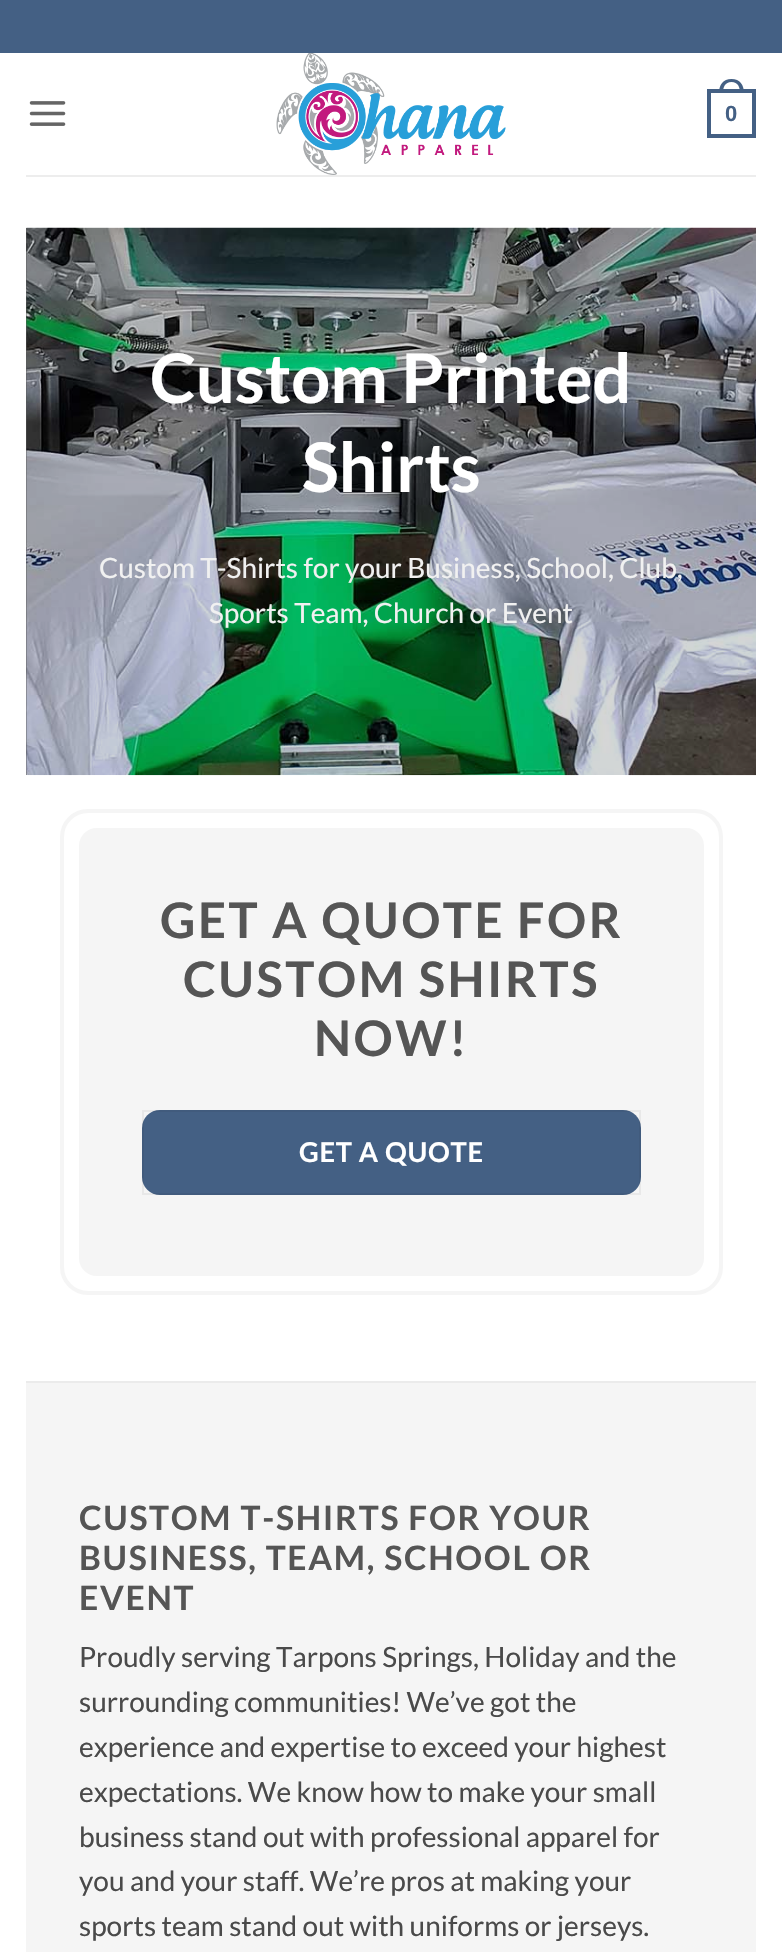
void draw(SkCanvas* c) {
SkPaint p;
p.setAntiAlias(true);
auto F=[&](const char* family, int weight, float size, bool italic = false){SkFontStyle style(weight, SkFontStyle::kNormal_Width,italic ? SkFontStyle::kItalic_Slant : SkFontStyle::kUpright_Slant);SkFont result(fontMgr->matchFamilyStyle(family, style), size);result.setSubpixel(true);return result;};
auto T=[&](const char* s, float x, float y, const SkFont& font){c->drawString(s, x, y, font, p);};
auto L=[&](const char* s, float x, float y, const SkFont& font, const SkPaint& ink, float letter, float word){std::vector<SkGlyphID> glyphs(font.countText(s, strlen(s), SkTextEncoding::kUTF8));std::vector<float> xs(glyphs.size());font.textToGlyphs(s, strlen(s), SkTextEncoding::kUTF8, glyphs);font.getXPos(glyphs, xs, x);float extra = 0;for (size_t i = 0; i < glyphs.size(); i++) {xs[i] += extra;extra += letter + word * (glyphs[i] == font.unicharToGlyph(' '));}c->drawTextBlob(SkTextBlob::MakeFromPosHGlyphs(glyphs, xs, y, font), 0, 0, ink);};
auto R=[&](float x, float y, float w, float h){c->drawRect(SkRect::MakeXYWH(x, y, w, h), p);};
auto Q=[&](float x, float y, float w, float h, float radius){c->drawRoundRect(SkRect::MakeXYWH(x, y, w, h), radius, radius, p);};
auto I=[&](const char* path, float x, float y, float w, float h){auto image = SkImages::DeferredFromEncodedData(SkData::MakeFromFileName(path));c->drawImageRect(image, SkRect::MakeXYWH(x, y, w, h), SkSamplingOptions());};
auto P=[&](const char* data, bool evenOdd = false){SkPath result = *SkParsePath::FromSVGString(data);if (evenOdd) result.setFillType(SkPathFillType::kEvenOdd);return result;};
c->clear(0xffffffff);
p.setColor(0xff446084);
R(0,0,782,53);
I("1.png",29,101,37,25);
I("2.png",276,53,230,122);
p.setStroke(true);
p.setStrokeWidth(4);
c->drawRect(SkRect::MakeXYWH(709,91,45,45),p);
p.setStroke(false);
c->drawPath(P("M731.5 79c8.5 0 12.5 6 12.5 14h-25c0-8 4-14 12.5-14zm0 3c6.5 0 8.5 5 8.5 11h-17c0-6 2-11 8.5-11z",true),p);
auto f1 = F("Liberation Sans",700,22);
T("0",725,121,f1);
p.setColor(0xffededed);
R(26,175,730,2);
p.setColor(0xff565656);
R(26,228,1,547);
I("3.png",26,227,730,549);
auto f2 = F("Lato",700,68.5);
p.setColor(0xffffffff);
T("Custom Printed",150,403,f2);
T("Shirts",302,492,f2);
auto f3 = F("Lato",400,28);
p.setColor(0xfff1f1f1);
T("Custom T-Shirts for your Business, School, Club,",99,578,f3);
T("Sports Team, Church or Event",209,623,f3);
p.setColor(0xfff5f5f5);
Q(79,828,625,448,18);
p.setStroke(true);
c->drawRoundRect(SkRect::MakeXYWH(62,811,659,482),26,26,p);
auto f4 = F("Lato",700,49);
p.setStroke(false);
p.setColor(0xff555555);
L("GET A QUOTE FOR",160,938,f4,p,2.5,0);
L("CUSTOM SHIRTS",183,997,f4,p,2.5,0);
L("NOW!",314,1056,f4,p,2.5,0);
p.setColor(0xff446084);
Q(142,1110,499,85,18);
p.setStroke(true);
p.setStrokeWidth(2);
p.setColor(0x0d000000);
c->drawRect(SkRect::MakeXYWH(143,1111,497,83),p);
auto f5 = F("Lato",700,27.25);
p.setStroke(false);
p.setColor(0xffffffff);
L("GET A QUOTE",299,1162,f5,p,.75,0);
p.setColor(0xfff5f5f5);
R(26,1383,730,569);
p.setColor(0xffebebeb);
R(26,1381,730,2);
auto f6 = F("Lato",700,33.6);
p.setColor(0xff555555);
L("CUSTOM T-SHIRTS FOR YOUR",79,1530,f6,p,1.7,0);
L("BUSINESS, TEAM, SCHOOL OR",79,1570,f6,p,1.7,0);
L("EVENT",79,1610,f6,p,1.7,0);
p.setColor(0xff4a4a4a);
T("Proudly serving Tarpons Springs, Holiday and the",79,1667,f3);
T("surrounding communities! We’ve got the",79,1712,f3);
T("experience and expertise to exceed your highest",79,1757,f3);
T("expectations. We know how to make your small",79,1802,f3);
T("business stand out with professional apparel for",79,1847,f3);
T("you and your staff. We’re pros at making your",79,1891,f3);
T("sports team stand out with uniforms or jerseys.",79,1936,f3);
}
